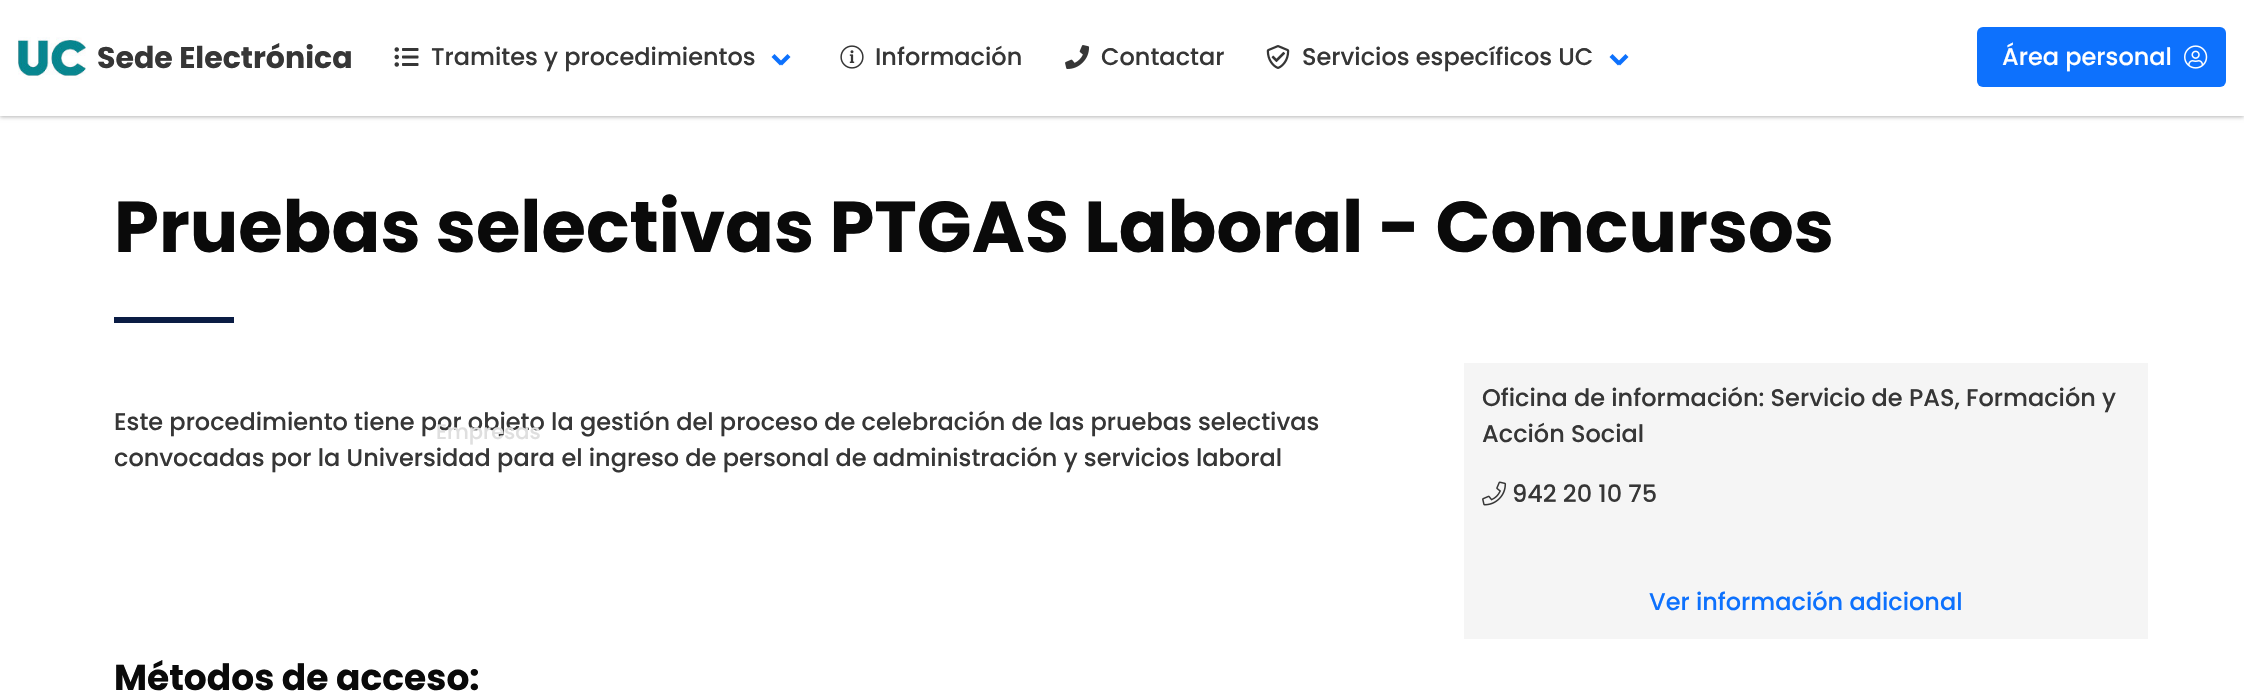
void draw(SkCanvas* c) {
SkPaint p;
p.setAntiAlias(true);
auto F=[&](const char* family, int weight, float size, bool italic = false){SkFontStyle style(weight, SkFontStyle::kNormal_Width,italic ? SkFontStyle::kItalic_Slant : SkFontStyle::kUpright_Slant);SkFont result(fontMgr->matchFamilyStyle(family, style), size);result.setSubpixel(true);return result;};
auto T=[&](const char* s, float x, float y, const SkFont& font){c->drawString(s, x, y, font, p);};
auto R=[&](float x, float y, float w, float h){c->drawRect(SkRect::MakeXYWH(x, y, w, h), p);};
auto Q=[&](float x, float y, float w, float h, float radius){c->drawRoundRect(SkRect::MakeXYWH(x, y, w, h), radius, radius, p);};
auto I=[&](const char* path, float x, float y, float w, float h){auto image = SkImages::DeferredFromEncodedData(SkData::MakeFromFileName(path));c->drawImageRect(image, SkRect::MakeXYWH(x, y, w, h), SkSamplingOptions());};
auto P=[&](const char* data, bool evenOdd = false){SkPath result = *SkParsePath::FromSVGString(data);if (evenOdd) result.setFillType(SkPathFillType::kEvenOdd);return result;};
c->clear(0xffffffff);
p.setColor(0xffb5b5b5);
p.setMaskFilter(SkMaskFilter::MakeBlur(kNormal_SkBlurStyle, 2));
c->drawRect(SkRect::MakeXYWH(0,2,2244,115),p);
p.setMaskFilter(nullptr);
p.setColor(0xffffffff);
R(0,0,2244,116);
I("1.png",18,37,68,43);
auto f1 = F("Poppins",700,30);
p.setColor(0xff363636);
T("Sede Electrónica",97,68,f1);
I("2.png",394,47,25,20);
auto f2 = F("Poppins",500,24);
T("Tramites y procedimientos",431,65,f2);
p.setColor(0xff0d71fd);
c->drawPath(P("M779 62.5l8.5-8.5l3 3l-8.5 8.5z"),p);
c->drawPath(P("M771.5 57l3-3l8.5 8.5l-3 3z"),p);
p.setColor(0xff363636);
T("Este procedimiento tiene por objeto la gestión del proceso de celebración de las pruebas selectivas",114,430,f2);
auto f3 = F("Poppins",500,21);
p.setColor(0xffdfdfdf);
T("Empresas",436,439,f3);
I("3.png",840,45,24,24);
p.setColor(0xff363636);
T("Información",875,65,f2);
I("4.png",1065,45,25,24);
T("Contactar",1101,65,f2);
I("5.png",1266,45,24,24);
T("Servicios específicos UC",1302,65,f2);
p.setColor(0xff0d71fd);
c->drawPath(P("M1617 62.5l8.5-8.5l3 3l-8.5 8.5z"),p);
c->drawPath(P("M1609.5 57l3-3l8.5 8.5l-3 3z"),p);
Q(1977,27,249,60,6);
p.setColor(0xffffffff);
T("Área personal",2002,65,f2);
I("6.png",2184,45,24,24);
auto f4 = F("Poppins",700,72);
p.setColor(0xff0a0a0a);
T("Pruebas selectivas PTGAS Laboral - Concursos",114,252,f4);
p.setColor(0xff0a1c44);
R(114,317,120,6);
p.setColor(0xff363636);
T("convocadas por la Universidad para el ingreso de personal de administración y servicios laboral",114,466,f2);
p.setColor(0xfff5f5f5);
R(1464,363,684,276);
p.setColor(0xff363636);
T("Oficina de información: Servicio de PAS, Formación y",1482,406,f2);
T("Acción Social",1482,442,f2);
I("7.png",1482,481,25,25);
T("942 20 10 75",1512,502,f2);
p.setColor(0xff0d71fd);
T("Ver información adicional",1649,610,f2);
auto f5 = F("Poppins",700,36);
p.setColor(0xff0a0a0a);
T("Métodos de acceso:",114,690,f5);
}
